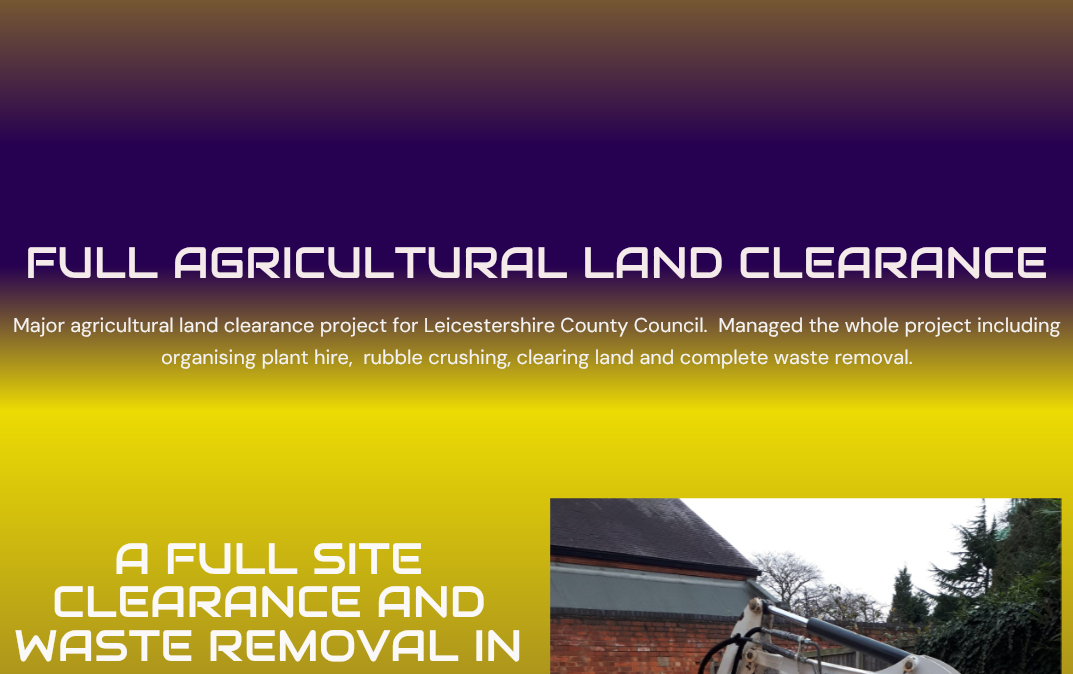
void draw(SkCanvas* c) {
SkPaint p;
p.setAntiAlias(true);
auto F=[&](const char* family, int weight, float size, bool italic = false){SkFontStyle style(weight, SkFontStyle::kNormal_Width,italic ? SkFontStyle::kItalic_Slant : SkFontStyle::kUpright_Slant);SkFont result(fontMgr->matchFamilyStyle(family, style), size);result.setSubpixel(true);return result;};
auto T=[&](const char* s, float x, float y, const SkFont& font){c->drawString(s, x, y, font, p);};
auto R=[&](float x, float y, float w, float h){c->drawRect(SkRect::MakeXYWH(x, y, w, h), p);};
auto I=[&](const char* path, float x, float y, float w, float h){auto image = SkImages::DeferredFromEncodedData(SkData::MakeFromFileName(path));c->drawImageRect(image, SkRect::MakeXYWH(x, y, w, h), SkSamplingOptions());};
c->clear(0xffffffff);
{
const SkColor colors[] = {0xffecdb03,0xff260051};
const float stops[] = {0,1};
const SkPoint ends[] = {{537,-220}, {537,146}};
p.setShader(SkGradientShader::MakeLinear(ends, colors, stops, 2, SkTileMode::kClamp));
p.setAlpha(255);
}
R(0,0,1073,146);
{
const SkColor colors[] = {0xff260051,0xffecdb03};
const float stops[] = {.45,1};
const SkPoint ends[] = {{537,146}, {537,411}};
p.setShader(SkGradientShader::MakeLinear(ends, colors, stops, 2, SkTileMode::kClamp));
p.setAlpha(255);
}
R(0,146,1073,265);
auto f1 = F("Audiowide",400,43.75);
p.setShader(nullptr);
p.setColor(0xfff4eaea);
T("FULL AGRICULTURAL LAND CLEARANCE",25,278,f1);
auto f2 = F("DM Sans",400,20);
p.setColor(0xfff4f2f2);
T("Major agricultural land clearance project for Leicestershire County Council.  Managed the whole project including",13,332,f2);
T("organising plant hire,  rubble crushing, clearing land and complete waste removal.",161,364,f2);
{
const SkColor colors[] = {0xffecdb03,0xff260051};
const float stops[] = {0,1};
const SkPoint ends[] = {{537,411}, {537,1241}};
p.setShader(SkGradientShader::MakeLinear(ends, colors, stops, 2, SkTileMode::kClamp));
p.setAlpha(255);
}
R(0,411,1073,263);
p.setShader(nullptr);
p.setColor(0xfffbf8f8);
T("A FULL SITE",114,574,f1);
T("CLEARANCE AND",52,617,f1);
T("WASTE REMOVAL IN",14,661,f1);
I("1.png",550,498,512,176);
}
